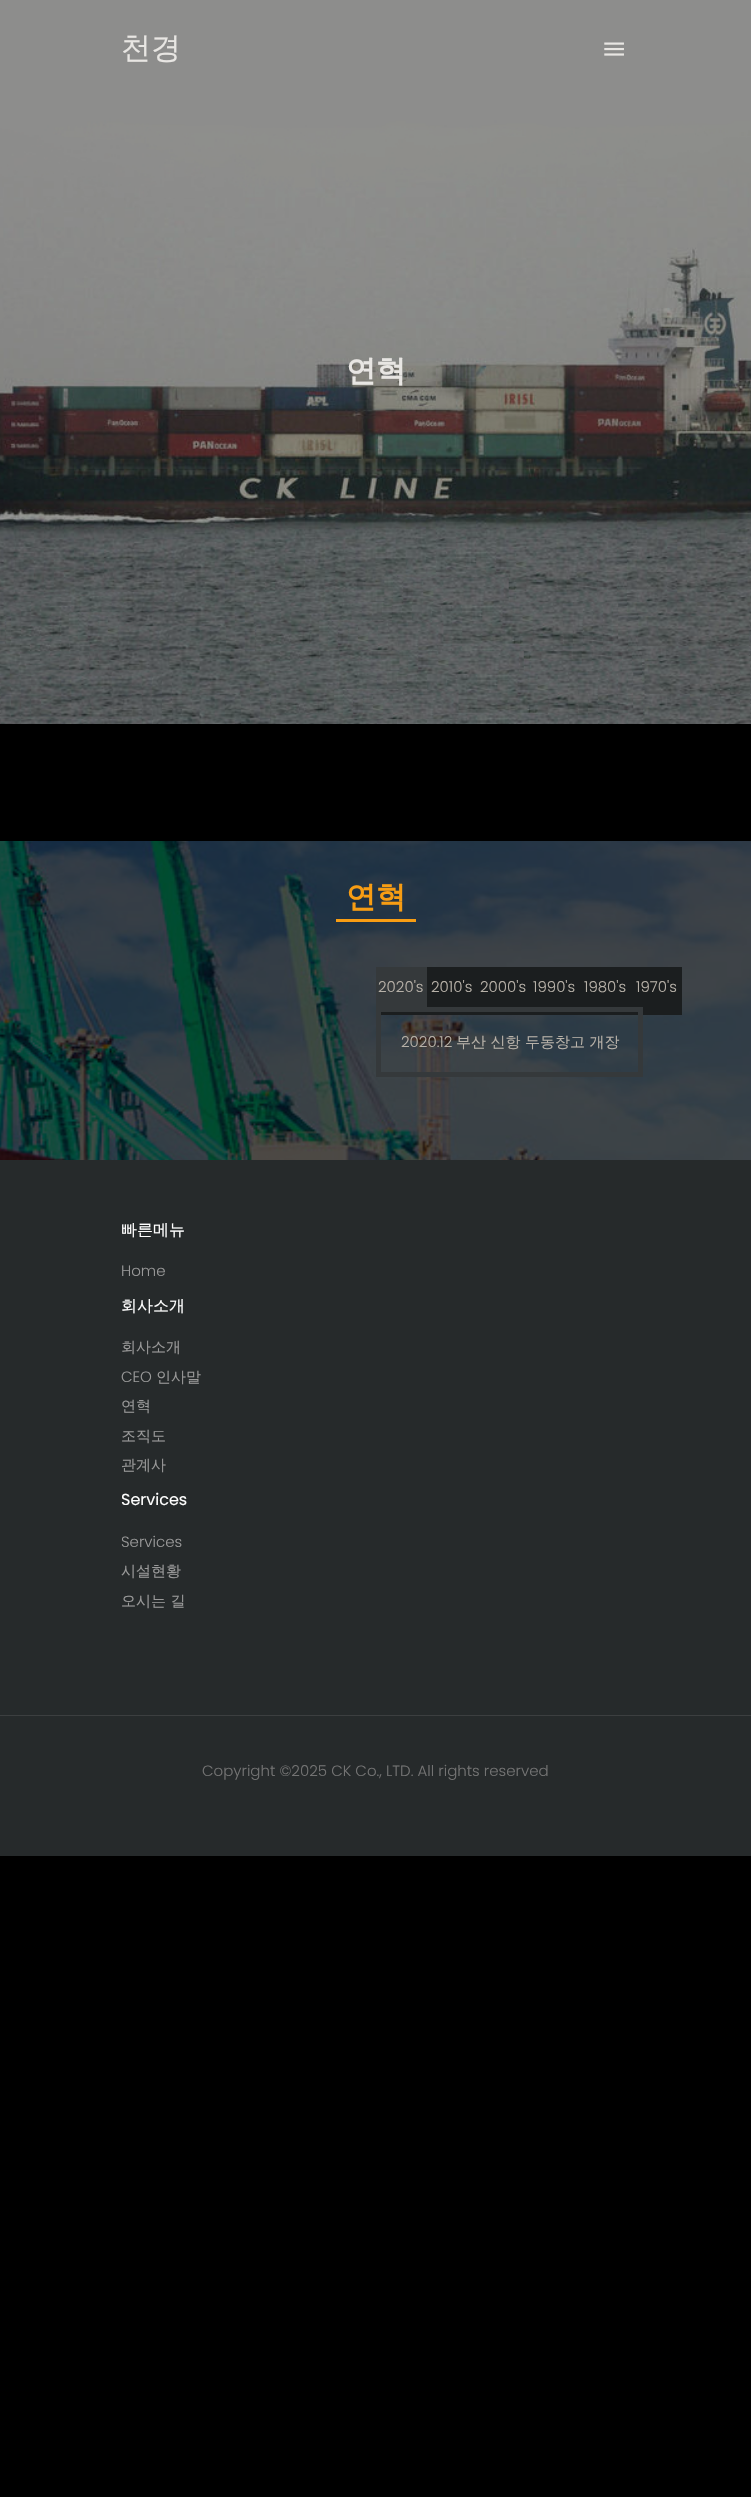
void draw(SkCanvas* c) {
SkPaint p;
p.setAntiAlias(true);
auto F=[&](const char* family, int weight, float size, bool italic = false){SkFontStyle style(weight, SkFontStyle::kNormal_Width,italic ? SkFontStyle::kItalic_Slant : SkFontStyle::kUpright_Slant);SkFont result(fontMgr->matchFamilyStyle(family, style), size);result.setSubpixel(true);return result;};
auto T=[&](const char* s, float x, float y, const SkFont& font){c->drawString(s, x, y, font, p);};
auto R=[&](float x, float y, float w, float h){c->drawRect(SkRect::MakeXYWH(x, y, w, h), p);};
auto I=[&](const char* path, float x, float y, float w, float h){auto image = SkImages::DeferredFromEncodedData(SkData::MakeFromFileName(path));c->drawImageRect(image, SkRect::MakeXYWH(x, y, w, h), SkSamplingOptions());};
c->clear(0xff000000);
I("2.png",0,0,751,724);
auto f1 = F("WenQuanYi Zen Hei",500,30);
p.setColor(0xffe8e6e3);
T("천경",121,58,f1);
I("1.png",604,42,20,14);
auto f2 = F("WenQuanYi Zen Hei",700,30);
T("연혁",346,381,f2);
I("3.png",0,841,751,319);
p.setColor(0xfff89d13);
T("연혁",346,907,f2);
R(336,919,80,3);
p.setColor(0xff1b1e1f);
R(381,1012,46,3);
p.setColor(0xff35393b);
R(376,967,51,40);
auto f3 = F("Poppins",300,15);
p.setColor(0xffb7b1a8);
T("2020's",378,992,f3);
p.setColor(0xff1b1e1f);
R(427,967,255,48);
p.setStroke(true);
p.setStrokeWidth(5);
p.setColor(0xff35393b);
c->drawRect(SkRect::MakeXYWH(378.5,1009.5,262,65),p);
p.setStroke(false);
p.setColor(0xffb7b1a8);
T("2020.12",401,1047,f3);
auto f4 = F("WenQuanYi Zen Hei",500,15);
T("부산 신항 두동창고 개장",456,1047,f4);
T("2010's",431,992,f3);
T("2000's",480,992,f3);
T("1990's",533,992,f3);
T("1980's",584,992,f3);
T("1970's",636,992,f3);
p.setColor(0xff262a2b);
R(0,1160,751,696);
auto f5 = F("WenQuanYi Zen Hei",500,16);
p.setColor(0xffffffff);
T("빠른메뉴",121,1235,f5);
p.setColor(0xff999999);
T("Home",121,1276,f3);
p.setColor(0xffffffff);
T("회사소개",121,1311,f5);
p.setColor(0xff999999);
T("회사소개",121,1352,f4);
T("CEO",121,1382,f3);
T("인사말",156,1382,f4);
T("연혁",121,1411,f4);
T("조직도",121,1441,f4);
T("관계사",121,1470,f4);
auto f6 = F("Poppins",400,16);
p.setColor(0xffffffff);
T("Services",121,1505,f6);
p.setColor(0xff999999);
T("Services",121,1547,f3);
T("시설현황",121,1576,f4);
T("오시는 길",121,1606,f4);
p.setColor(0xff3c3f40);
R(0,1715,751,1);
p.setColor(0xff737373);
T("Copyright ©2025 CK Co., LTD. All rights reserved",202,1776,f3);
}
